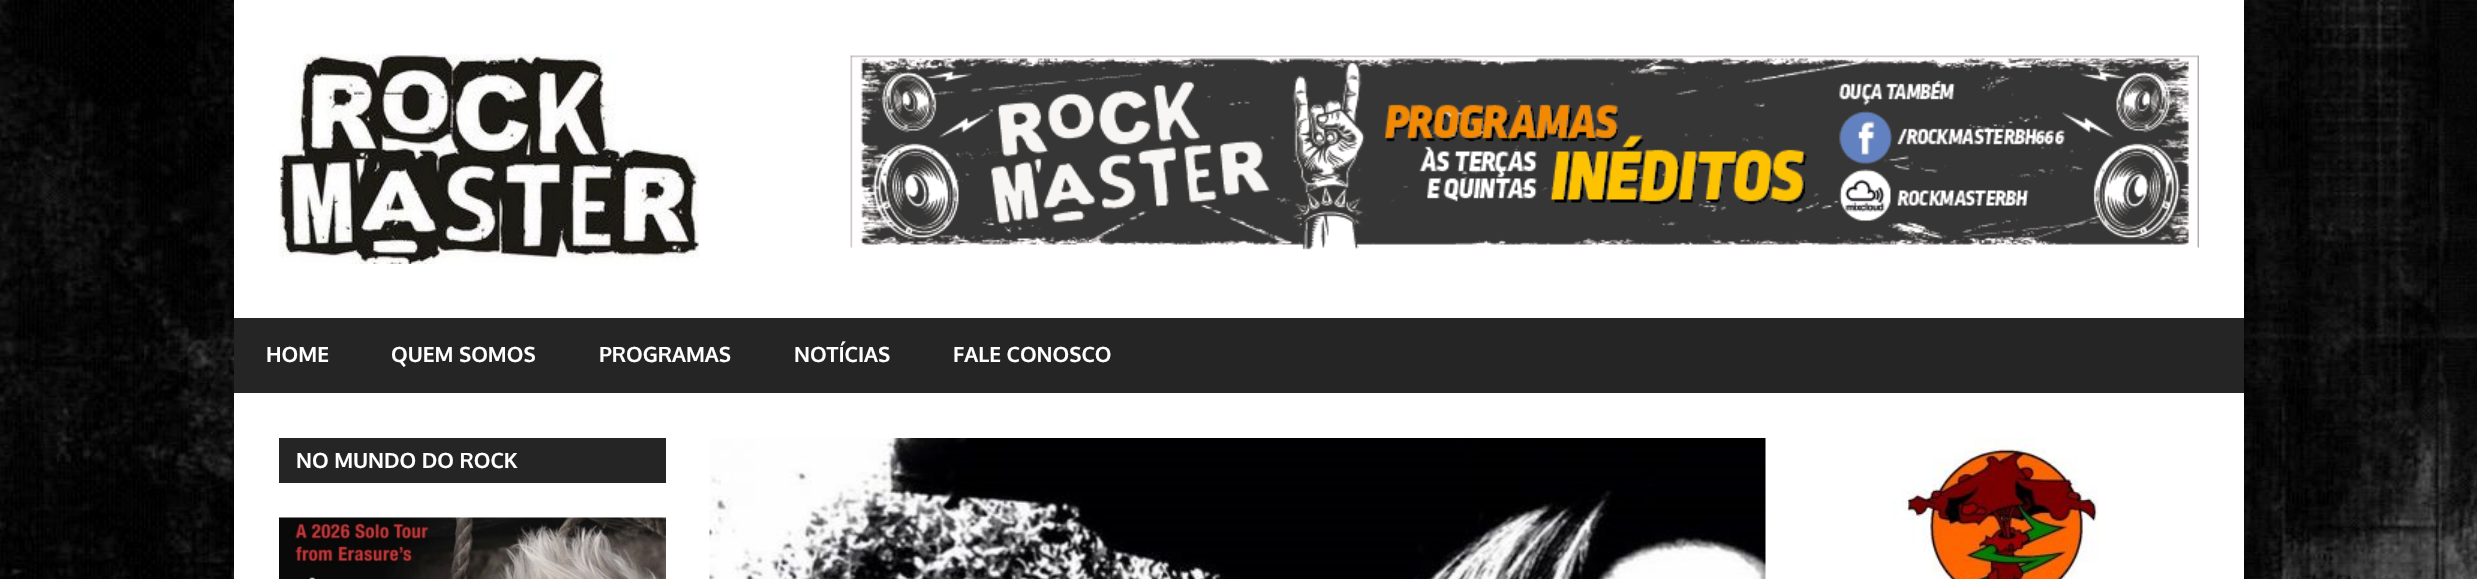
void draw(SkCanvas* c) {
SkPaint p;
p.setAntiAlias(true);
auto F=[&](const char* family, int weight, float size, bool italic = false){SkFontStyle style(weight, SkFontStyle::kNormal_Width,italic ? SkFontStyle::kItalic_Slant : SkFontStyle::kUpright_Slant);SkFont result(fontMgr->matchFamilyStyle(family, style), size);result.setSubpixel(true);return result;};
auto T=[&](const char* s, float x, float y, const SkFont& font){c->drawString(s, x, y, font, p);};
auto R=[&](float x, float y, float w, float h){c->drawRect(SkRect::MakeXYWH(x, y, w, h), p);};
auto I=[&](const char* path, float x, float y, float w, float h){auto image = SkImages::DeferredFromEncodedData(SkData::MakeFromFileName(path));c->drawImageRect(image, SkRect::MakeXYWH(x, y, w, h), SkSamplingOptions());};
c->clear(0xffffffff);
I("1.png",0,0,2477,579);
p.setColor(0xffffffff);
R(234,0,2010,318);
I("2.png",279,54,420,210);
I("3.png",850,55,1349,195);
p.setColor(0xff252525);
R(234,318,2010,75);
auto f1 = F("Oxygen",700,21);
p.setColor(0xffffffff);
T("HOME",266,362,f1);
T("QUEM SOMOS",391,362,f1);
T("PROGRAMAS",599,362,f1);
T("NOTÍCIAS",794,362,f1);
T("FALE CONOSCO",953,362,f1);
R(234,393,2010,186);
p.setColor(0xff252525);
R(279,438,387,45);
p.setColor(0xffffffff);
T("NO MUNDO DO ROCK",296,468,f1);
I("4.png",279,517,387,62);
I("5.png",709,438,1057,141);
I("6.png",1892,438,207,141);
}
